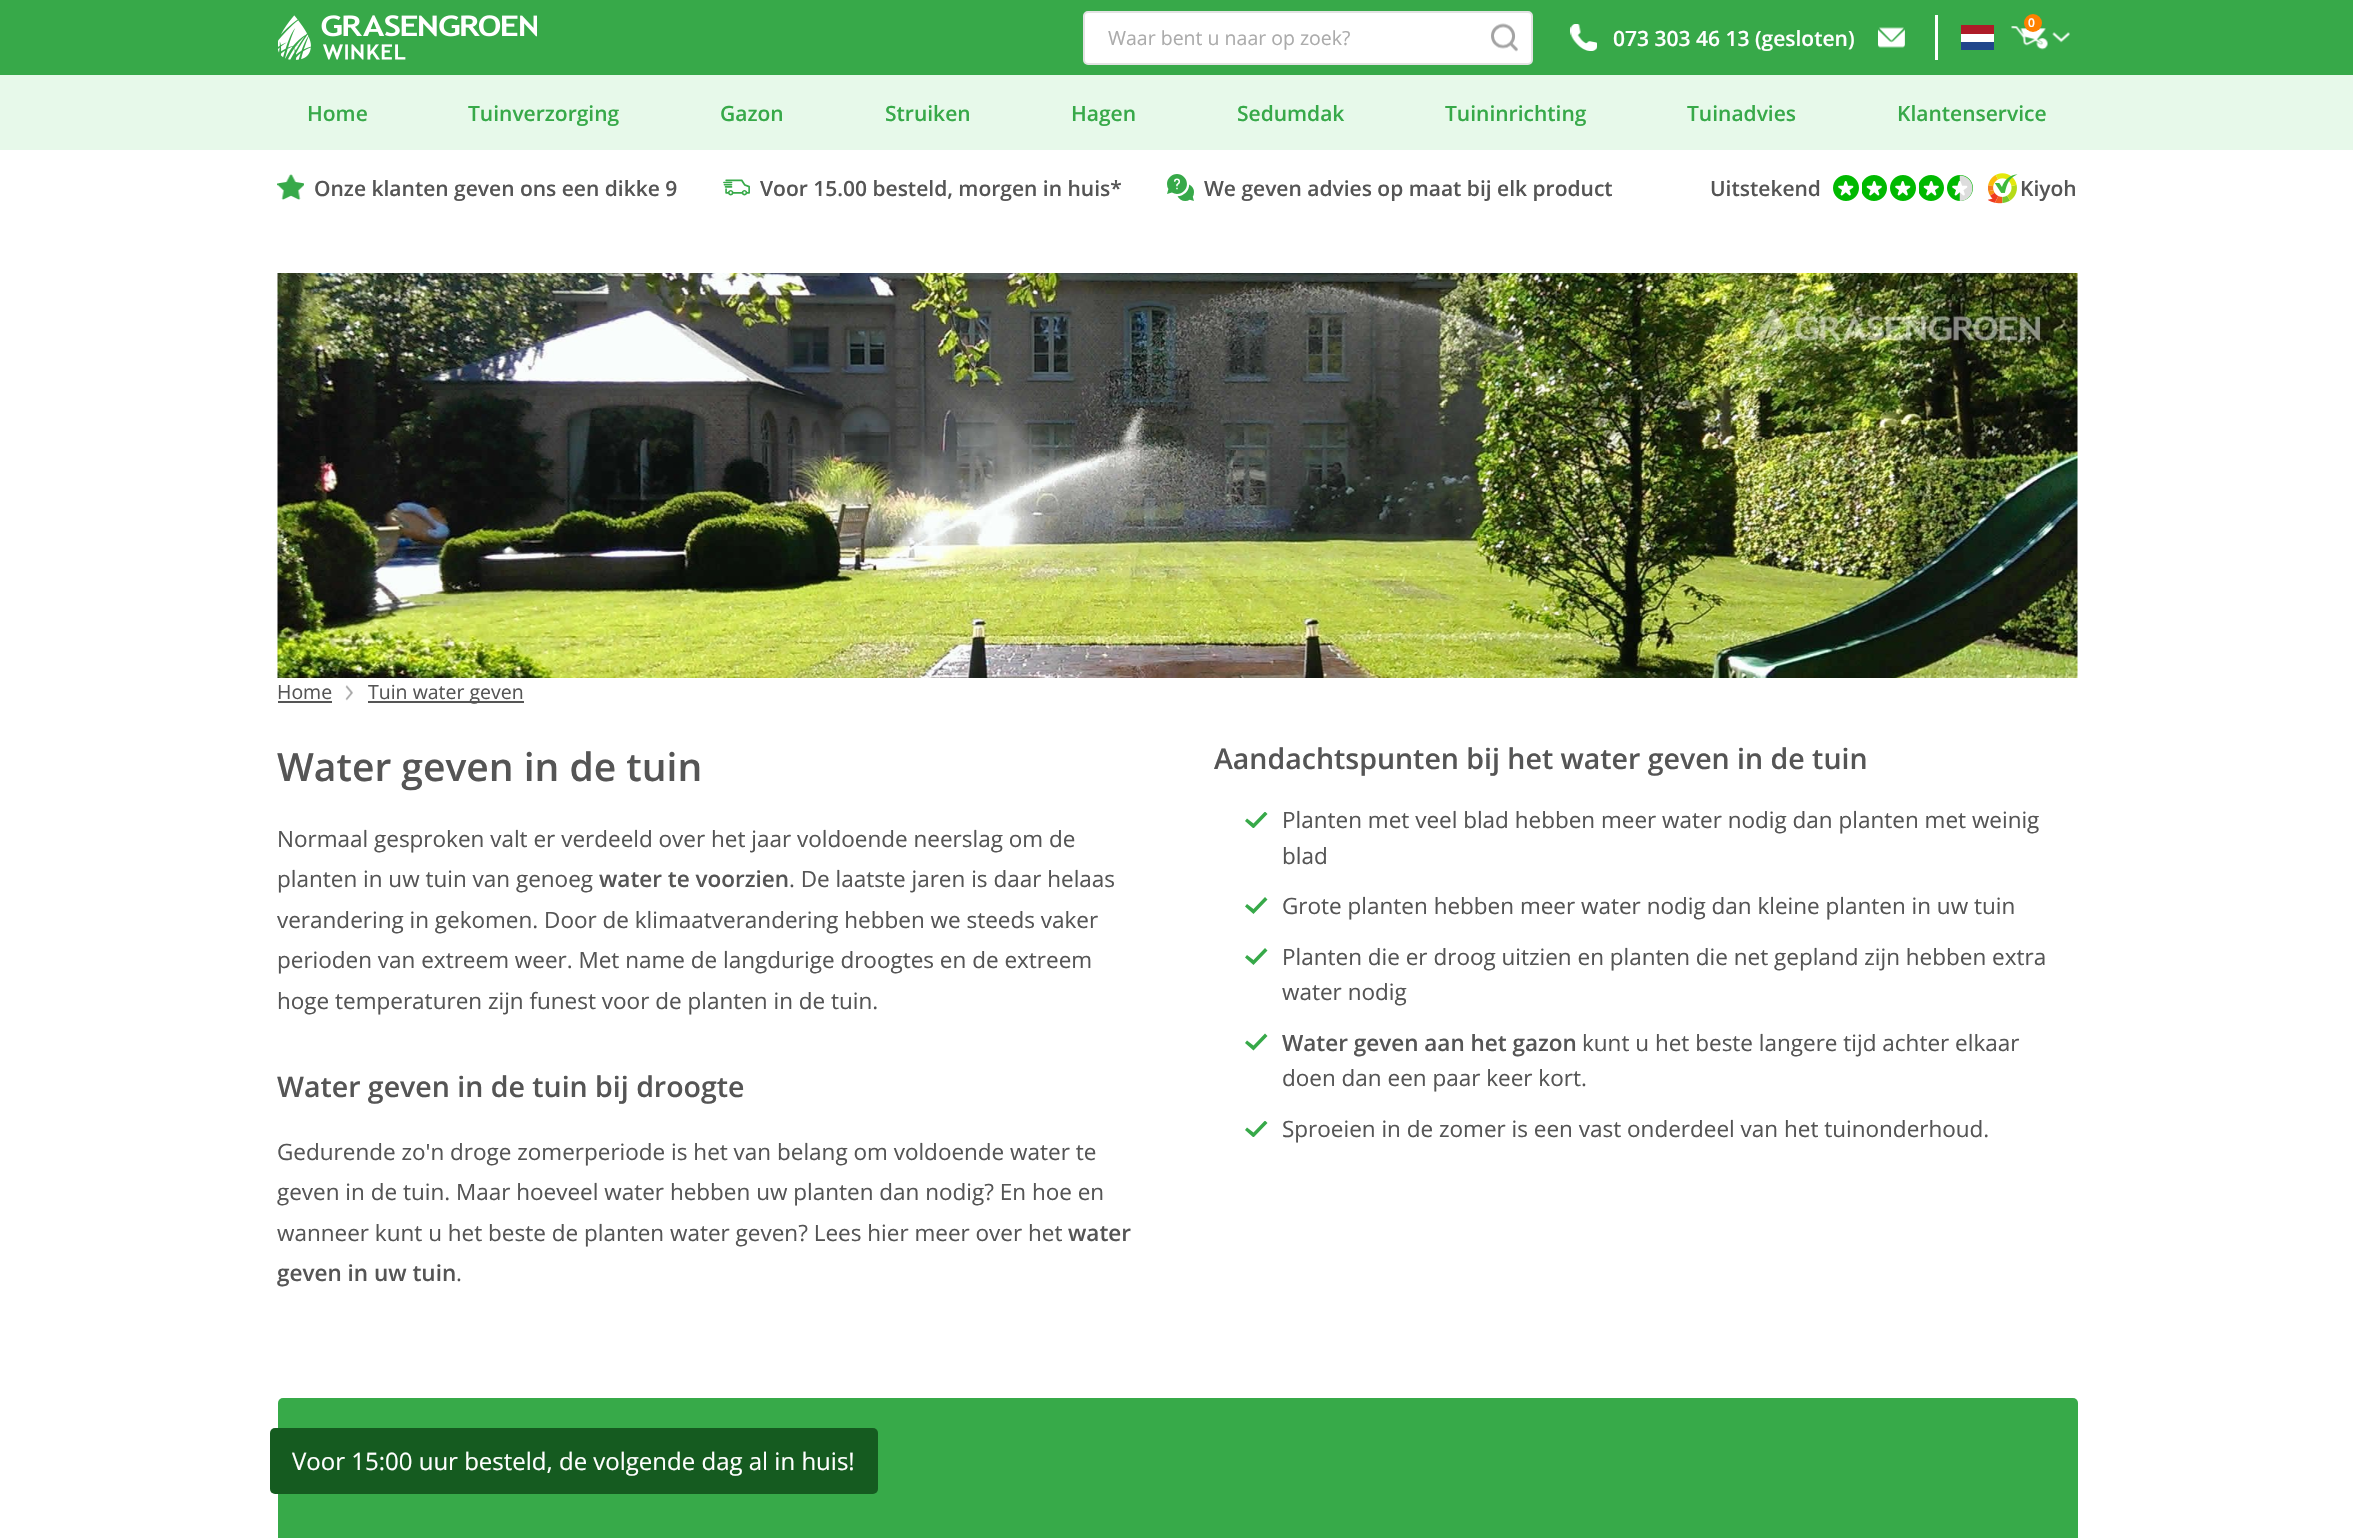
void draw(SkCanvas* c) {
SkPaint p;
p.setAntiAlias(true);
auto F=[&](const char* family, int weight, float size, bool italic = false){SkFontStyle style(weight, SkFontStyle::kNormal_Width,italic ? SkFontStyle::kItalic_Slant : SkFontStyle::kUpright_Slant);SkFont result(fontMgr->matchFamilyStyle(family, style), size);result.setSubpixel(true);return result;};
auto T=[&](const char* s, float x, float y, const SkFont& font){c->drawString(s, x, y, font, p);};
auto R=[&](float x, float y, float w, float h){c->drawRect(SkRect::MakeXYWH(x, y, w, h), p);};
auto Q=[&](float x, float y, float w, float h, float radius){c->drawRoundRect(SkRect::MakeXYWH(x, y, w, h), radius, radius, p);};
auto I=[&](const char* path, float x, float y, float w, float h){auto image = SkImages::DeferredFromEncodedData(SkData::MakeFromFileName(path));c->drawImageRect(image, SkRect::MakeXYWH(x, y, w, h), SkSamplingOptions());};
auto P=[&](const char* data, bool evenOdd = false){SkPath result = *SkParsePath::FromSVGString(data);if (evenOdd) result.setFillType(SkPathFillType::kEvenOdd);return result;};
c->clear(0xffffffff);
p.setColor(0xff37a949);
R(0,0,2353,75);
I("1.png",278,15,259,45);
I("2.png",2011,26,37,24);
p.setColor(0xffff8100);
c->drawCircle(2033,23,9,p);
auto f1 = F("Open Sans",600,12);
p.setColor(0xffffffff);
T("0",2028,27,f1);
I("3.png",2052,32,18,11);
c->drawRoundRect(SkRect::MakeXYWH(1084,12,448,52),4,4,p);
p.setStroke(true);
p.setStrokeWidth(2);
p.setColor(0xffe3e3e3);
c->drawRoundRect(SkRect::MakeXYWH(1084,12,448,52),4,4,p);
auto f2 = F("Open Sans",400,19.5);
p.setStroke(false);
p.setColor(0xffababab);
T("Waar bent u naar op zoek?",1108,45,f2);
I("4.png",1491,23,27,29);
I("5.png",1570,24,27,27);
auto f3 = F("Open Sans",600,21);
p.setColor(0xffffffff);
T("073 303 46 13 (gesloten)",1613,46,f3);
I("6.png",1878,27,27,21);
R(1935,15,3,45);
p.setColor(0xffae1c28);
R(1961,25,33,9);
p.setColor(0xffffffff);
R(1961,34,33,8);
p.setColor(0xff21468b);
R(1961,42,33,8);
p.setColor(0xffe7f9ea);
R(0,75,2353,75);
p.setColor(0xff37a949);
T("Home",307,121,f3);
T("Tuinverzorging",468,121,f3);
T("Gazon",720,121,f3);
T("Struiken",885,121,f3);
T("Hagen",1071,121,f3);
T("Sedumdak",1237,121,f3);
T("Tuininrichting",1445,121,f3);
T("Tuinadvies",1687,121,f3);
T("Klantenservice",1897,121,f3);
I("7.png",277,174,27,26);
p.setColor(0xff555555);
T("Onze klanten geven ons een dikke 9",314,196,f3);
I("8.png",723,179,27,17);
T("Voor 15.00 besteld, morgen in huis*",760,196,f3);
I("9.png",1167,174,27,27);
T("We geven advies op maat bij elk product",1204,196,f3);
T("Uitstekend",1710,196,f3);
I("10.png",1833,175,26,26);
I("11.png",1862,175,25,26);
I("10.png",1890,175,26,26);
I("11.png",1919,175,25,26);
I("12.png",1947,175,26,26);
I("13.png",1988,173,30,31);
T("Kiyoh",2020,196,f3);
I("14.png",277,273,1801,405);
T("Home",277,699,f2);
R(278,701,54,2);
I("15.png",345,685,8,16);
R(368,701,156,2);
T("Tuin water geven",368,699,f2);
auto f4 = F("Open Sans",600,39);
T("Water geven in de tuin",277,781,f4);
auto f5 = F("Open Sans",400,22.5);
T("Normaal gesproken valt er verdeeld over het jaar voldoende neerslag om de",277,847,f5);
T("planten in uw tuin van genoeg",277,887,f5);
auto f6 = F("Open Sans",600,22.5);
T("water te voorzien",599,887,f6);
T(". De laatste jaren is daar helaas",789,887,f5);
T("verandering in gekomen. Door de klimaatverandering hebben we steeds vaker",277,928,f5);
T("perioden van extreem weer. Met name de langdurige droogtes en de extreem",277,968,f5);
T("hoge temperaturen zijn funest voor de planten in de tuin.",277,1009,f5);
auto f7 = F("Open Sans",600,28.5);
T("Water geven in de tuin bij droogte",277,1097,f7);
T("Gedurende zo'n droge zomerperiode is het van belang om voldoende water te",277,1160,f5);
T("geven in de tuin. Maar hoeveel water hebben uw planten dan nodig? En hoe en",277,1200,f5);
T("wanneer kunt u het beste de planten water geven? Lees hier meer over het",277,1241,f5);
T("water",1068,1241,f6);
T("geven in uw tuin",277,1281,f6);
T(".",456,1281,f5);
T("Aandachtspunten bij het water geven in de tuin",1214,769,f7);
c->save();
c->clipRect(SkRect::MakeXYWH(1245,812,23,16));
p.setColor(0xff37a949);
c->drawPath(P("M1265 811.5l-11.5 12l-6.5-5l-2 2.5l8.5 7.5l14-14.5z"),p);
c->restore();
p.setColor(0xff555555);
T("Planten met veel blad hebben meer water nodig dan planten met weinig",1282,828,f5);
T("blad",1282,864,f5);
p.setColor(0xff37a949);
c->drawPath(P("M1265 897l-11.5 12l-6.5-5l-2 2.5l8.5 7.5l14-14.5z"),p);
p.setColor(0xff555555);
T("Grote planten hebben meer water nodig dan kleine planten in uw tuin",1282,914,f5);
p.setColor(0xff37a949);
c->drawPath(P("M1265 948l-11.5 12l-6.5-5l-2 2.5l8.5 7.5l14-14.5z"),p);
p.setColor(0xff555555);
T("Planten die er droog uitzien en planten die net gepland zijn hebben extra",1282,965,f5);
T("water nodig",1282,1000,f5);
p.setColor(0xff37a949);
c->drawPath(P("M1265 1033.5l-11.5 12l-6.5-5l-2 2.5l8.5 7.5l14-14.5z"),p);
p.setColor(0xff555555);
T("Water geven aan het gazon",1282,1051,f6);
T("kunt u het beste langere tijd achter elkaar",1582,1051,f5);
T("doen dan een paar keer kort.",1282,1086,f5);
c->save();
c->clipRect(SkRect::MakeXYWH(1245,1121,23,16));
p.setColor(0xff37a949);
c->drawPath(P("M1265 1120.5l-11.5 12l-6.5-5l-2 2.5l8.5 7.5l14-14.5z"),p);
c->restore();
p.setColor(0xff555555);
T("Sproeien in de zomer is een vast onderdeel van het tuinonderhoud.",1282,1137,f5);
p.setColor(0xff37aa49);
Q(278,1398,1800,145,5);
p.setColor(0xff155b20);
Q(270,1428,608,66,5);
auto f8 = F("Open Sans",400,24);
p.setColor(0xffffffff);
T("Voor 15:00 uur besteld, de volgende dag al in huis!",292,1470,f8);
}
